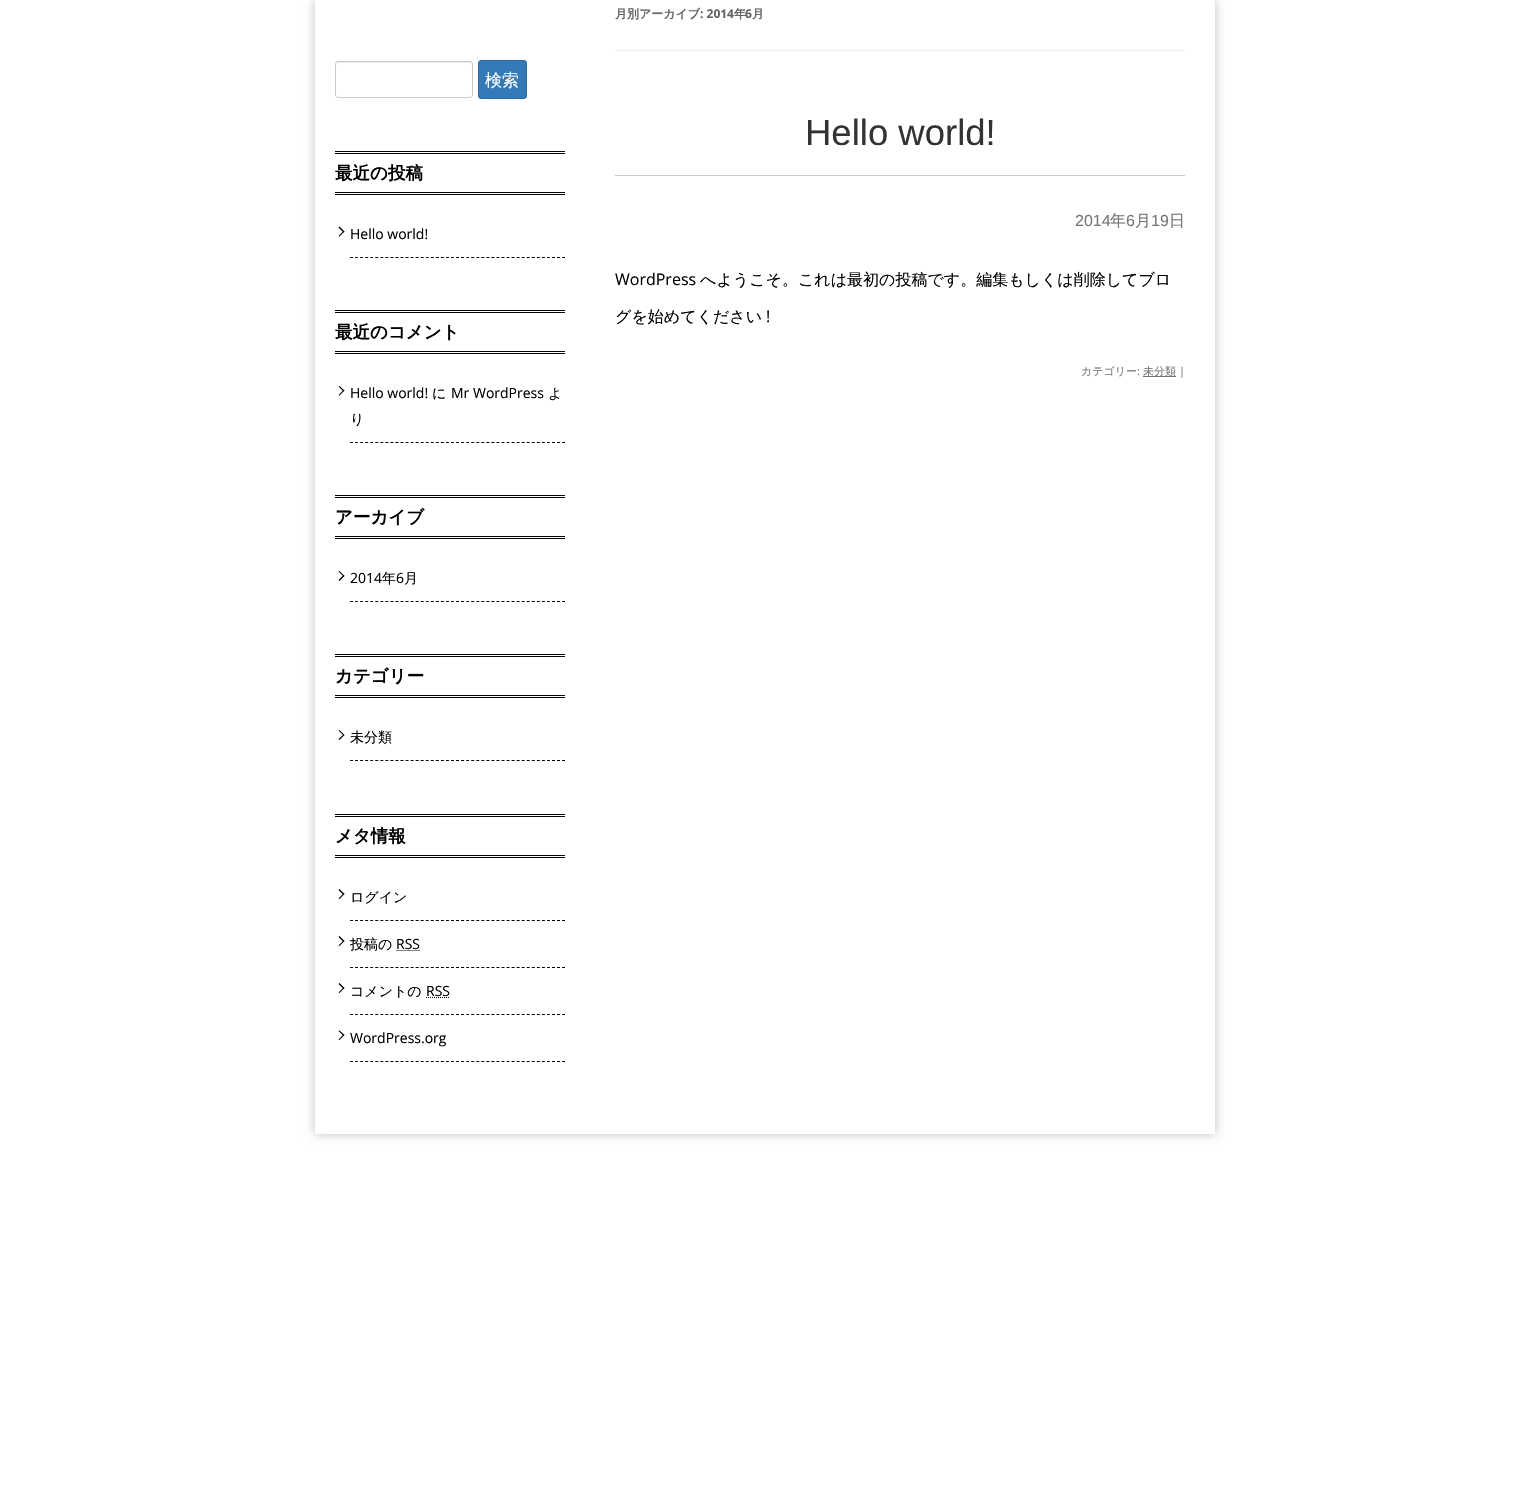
void draw(SkCanvas* c) {
SkPaint p;
p.setAntiAlias(true);
auto F=[&](const char* family, int weight, float size, bool italic = false){SkFontStyle style(weight, SkFontStyle::kNormal_Width,italic ? SkFontStyle::kItalic_Slant : SkFontStyle::kUpright_Slant);SkFont result(fontMgr->matchFamilyStyle(family, style), size);result.setSubpixel(true);return result;};
auto T=[&](const char* s, float x, float y, const SkFont& font){c->drawString(s, x, y, font, p);};
auto R=[&](float x, float y, float w, float h){c->drawRect(SkRect::MakeXYWH(x, y, w, h), p);};
auto P=[&](const char* data, bool evenOdd = false){SkPath result = *SkParsePath::FromSVGString(data);if (evenOdd) result.setFillType(SkPathFillType::kEvenOdd);return result;};
c->clear(0xffffffff);
c->save();
c->clipPath(P("M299 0h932v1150h-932zm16 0h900v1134h-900z",true),true);
p.setColor(0x40000000);
p.setMaskFilter(SkMaskFilter::MakeBlur(kNormal_SkBlurStyle, 5));
c->drawRect(SkRect::MakeXYWH(315,0,900,1134),p);
p.setMaskFilter(nullptr);
c->restore();
p.setColor(0xffececec);
c->drawPath(P("M338 63h132c1 0 2 1 2 2c0-1 0-3-2-3h-132c-2 0-2 2-2 3c0-1 1-2 2-2z"),p);
p.setStroke(true);
p.setStrokeWidth(1);
p.setColor(0xffcccccc);
c->drawRoundRect(SkRect::MakeXYWH(335.5,61.5,137,36),2.5,2.5,p);
p.setStroke(false);
p.setColor(0xff337ab7);
c->drawRoundRect(SkRect::MakeXYWH(478.5,60.5,48,38),2.5,2.5,p);
p.setStroke(true);
p.setColor(0xff2e6da4);
c->drawRoundRect(SkRect::MakeXYWH(478.5,60.5,48,38),2.5,2.5,p);
auto f1 = F("WenQuanYi Zen Hei",500,17);
p.setStroke(false);
p.setColor(0xffffffff);
T("検索",485,86,f1);
p.setColor(0xff000000);
R(335,151,230,1);
R(335,153,230,1);
R(335,192,230,1);
R(335,194,230,1);
auto f2 = F("WenQuanYi Zen Hei",700,17.5);
T("最近の投稿",335,179,f2);
p.setStroke(true);
p.setPathEffect(SkDashPathEffect::Make({{3,2.05f}}, 0));
c->drawPath(P("M350 257.5h215"),p);
p.setPathEffect(nullptr);
p.setStroke(false);
c->drawPath(P("M338.5 227.5l1-1l5 5l-1 1z"),p);
c->drawPath(P("M338.5 236l5-5l1 .5l-5 5z"),p);
auto f3 = F("Open Sans",400,14);
T("Hello world!",350,239,f3);
R(335,310,230,1);
R(335,312,230,1);
R(335,351,230,1);
R(335,353,230,1);
T("最近のコメント",335,338,f2);
p.setStroke(true);
p.setPathEffect(SkDashPathEffect::Make({{3,2.05f}}, 0));
c->drawPath(P("M350 442.5h215"),p);
p.setPathEffect(nullptr);
p.setStroke(false);
c->drawPath(P("M338.5 386.5l1-.5l5 4.5l-1 1z"),p);
c->drawPath(P("M338.5 395l5-5l1 .5l-5 5z"),p);
T("Hello world!",350,398,f3);
auto f4 = F("WenQuanYi Zen Hei",500,14);
T("に",432,398,f4);
T("Mr WordPress",451,398,f3);
T("よ",548,398,f4);
T("り",350,424,f4);
R(335,495,230,1);
R(335,497,230,1);
R(335,536,230,1);
R(335,538,230,1);
T("アーカイブ",335,523,f2);
p.setStroke(true);
p.setPathEffect(SkDashPathEffect::Make({{3,2.05f}}, 0));
c->drawPath(P("M350 601.5h215"),p);
p.setPathEffect(nullptr);
p.setStroke(false);
c->drawPath(P("M338.5 571.5l1-.5l5 5l-1 .5z"),p);
c->drawPath(P("M338.5 580l5-5l1 1l-5 5z"),p);
T("2014",350,583,f3);
T("年",382,583,f4);
T("6",396,583,f3);
T("月",404,583,f4);
R(335,654,230,1);
R(335,656,230,1);
R(335,695,230,1);
R(335,697,230,1);
T("カテゴリー",335,682,f2);
p.setStroke(true);
p.setPathEffect(SkDashPathEffect::Make({{3,2.05f}}, 0));
c->drawPath(P("M350 760.5h215"),p);
p.setPathEffect(nullptr);
p.setStroke(false);
c->drawPath(P("M338.5 730.5l1-.5l5 5l-1 .5z"),p);
c->drawPath(P("M338.5 739l5-4.5l1 .5l-5 5z"),p);
T("未分類",350,742,f4);
R(335,814,230,1);
R(335,816,230,1);
R(335,855,230,1);
R(335,857,230,1);
T("メタ情報",335,842,f2);
p.setStroke(true);
p.setPathEffect(SkDashPathEffect::Make({{3,2.05f}}, 0));
c->drawPath(P("M350 920.5h215"),p);
p.setPathEffect(nullptr);
p.setStroke(false);
c->drawPath(P("M338.5 890l1-1l5 5l-1 1z"),p);
c->drawPath(P("M338.5 898.5l5-5l1 .5l-5 5z"),p);
T("ログイン",350,902,f4);
p.setStroke(true);
p.setPathEffect(SkDashPathEffect::Make({{3,2.05f}}, 0));
c->drawPath(P("M350 967.5h215"),p);
p.setPathEffect(nullptr);
p.setStroke(false);
c->drawPath(P("M338.5 937l1-1l5 5l-1 1z"),p);
c->drawPath(P("M338.5 945.5l5-5l1 .5l-5 5z"),p);
T("投稿の",350,949,f4);
T("RSS",396,949,f3);
p.setStroke(true);
p.setPathEffect(SkDashPathEffect::Make({{1,1}}, 0));
c->drawPath(P("M396.5 950.5h24"),p);
p.setPathEffect(nullptr);
p.setPathEffect(SkDashPathEffect::Make({{3,2.05f}}, 0));
c->drawPath(P("M350 1014.5h215"),p);
p.setPathEffect(nullptr);
p.setStroke(false);
c->drawPath(P("M338.5 984l1-1l5 5l-1 1z"),p);
c->drawPath(P("M338.5 992.5l5-5l1 .5l-5 5z"),p);
T("コメントの",350,996,f4);
T("RSS",426,996,f3);
p.setStroke(true);
p.setPathEffect(SkDashPathEffect::Make({{1,1}}, 0));
c->drawPath(P("M426 997.5h24"),p);
p.setPathEffect(nullptr);
p.setPathEffect(SkDashPathEffect::Make({{3,2.05f}}, 0));
c->drawPath(P("M350 1061.5h215"),p);
p.setPathEffect(nullptr);
p.setStroke(false);
c->drawPath(P("M338.5 1031l1-.5l5 4.5l-1 1z"),p);
c->drawPath(P("M338.5 1039.5l5-5l1 .5l-5 5z"),p);
T("WordPress.org",350,1043,f3);
p.setColor(0xffededed);
R(615,50,570,1);
auto f5 = F("WenQuanYi Zen Hei",700,12);
p.setColor(0xff636363);
T("月別アーカイブ",615,18,f5);
auto f6 = F("Open Sans",700,12);
T(": 2014",700,18,f6);
T("年",734,18,f5);
T("6",745,18,f6);
T("月",752,18,f5);
p.setColor(0xffcccccc);
R(615,175,570,1);
auto f7 = F("Liberation Sans",400,36.5);
p.setColor(0xff333333);
T("Hello world!",805,145,f7);
auto f8 = F("Liberation Sans",400,16);
p.setColor(0xff757575);
T("2014",1075,226,f8);
auto f9 = F("WenQuanYi Zen Hei",500,16);
T("年",1110,226,f9);
T("6",1126,226,f8);
T("月",1135,226,f9);
T("19",1151,226,f8);
T("日",1169,226,f9);
auto f10 = F("Open Sans",400,16);
p.setColor(0xff000000);
T("WordPress",615,285,f10);
T("へようこそ。これは最初の投稿です。編集もしくは削除してブロ",700,285,f9);
T("グを始めてください",615,322,f9);
T("!",766,322,f10);
auto f11 = F("WenQuanYi Zen Hei",500,11);
p.setColor(0xff757575);
T("カテゴリー",1081,375,f11);
auto f12 = F("Open Sans",400,11);
T(":",1137,375,f12);
R(1143,376,33,1);
T("未分類",1143,375,f11);
T("|",1179,375,f12);
}
